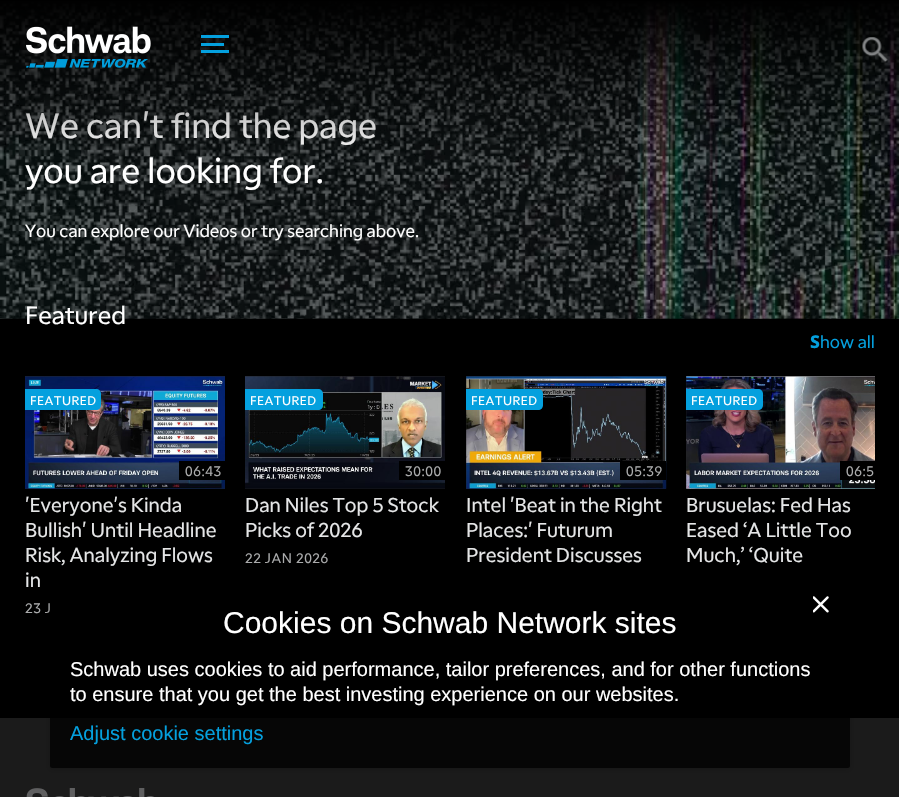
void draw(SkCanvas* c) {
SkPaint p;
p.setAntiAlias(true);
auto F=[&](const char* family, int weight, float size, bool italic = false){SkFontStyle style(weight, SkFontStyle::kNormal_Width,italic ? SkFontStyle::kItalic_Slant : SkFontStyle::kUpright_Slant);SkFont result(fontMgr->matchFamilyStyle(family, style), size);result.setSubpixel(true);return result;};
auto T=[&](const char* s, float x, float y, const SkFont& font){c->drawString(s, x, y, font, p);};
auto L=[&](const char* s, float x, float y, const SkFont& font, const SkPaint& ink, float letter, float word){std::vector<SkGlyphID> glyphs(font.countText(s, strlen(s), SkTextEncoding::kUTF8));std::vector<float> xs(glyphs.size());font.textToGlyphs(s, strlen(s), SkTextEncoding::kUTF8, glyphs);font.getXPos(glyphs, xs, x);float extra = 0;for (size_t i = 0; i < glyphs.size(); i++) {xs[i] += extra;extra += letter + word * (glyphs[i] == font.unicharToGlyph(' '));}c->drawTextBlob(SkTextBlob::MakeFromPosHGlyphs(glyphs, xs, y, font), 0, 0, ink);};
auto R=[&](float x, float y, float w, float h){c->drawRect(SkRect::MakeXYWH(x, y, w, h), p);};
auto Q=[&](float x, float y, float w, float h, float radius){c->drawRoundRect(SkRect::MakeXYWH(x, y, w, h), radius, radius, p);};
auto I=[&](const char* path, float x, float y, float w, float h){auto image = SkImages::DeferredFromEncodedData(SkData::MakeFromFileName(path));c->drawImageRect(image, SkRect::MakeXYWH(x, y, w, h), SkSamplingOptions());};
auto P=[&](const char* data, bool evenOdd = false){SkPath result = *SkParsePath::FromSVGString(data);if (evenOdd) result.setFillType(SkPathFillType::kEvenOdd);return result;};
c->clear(0xff000000);
I("3.png",0,1,899,318);
auto f1 = F("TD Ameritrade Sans",400,35);
p.setColor(0xffffffff);
T("We can't find the page",25,138,f1);
{
const SkColor colors[] = {0xff000000,0x5c000000,0x00000000};
const float stops[] = {0,.52,.99};
const SkPoint ends[] = {{450,0}, {450,163}};
p.setShader(SkGradientShader::MakeLinear(ends, colors, stops, 3, SkTileMode::kClamp));
p.setAlpha(255);
}
R(0,1,899,155);
I("1.png",26,26,125,42);
p.setShader(nullptr);
p.setColor(0xff04a0de);
R(201,35,28,3);
R(201,43,23,3);
R(201,50,28,3);
I("2.png",862,37,26,26);
p.setColor(0xffffffff);
T("you are looking for.",25,183,f1);
auto f2 = F("TD Ameritrade Sans",400,17.5);
T("You can explore our Videos or try searching above.",25,237,f2);
auto f3 = F("TD Ameritrade Sans",400,25);
T("Featured",25,324,f3);
auto f4 = F("Noto Sans",800,17.5);
p.setColor(0xff04a0de);
T("S",810,348,f4);
T("how all",820,348,f2);
p.setColor(0xff272728);
R(25,376,200,113);
I("4.png",25,376,200,113);
p.setColor(0xff04a0de);
c->drawPath(P("M25 389h71c3 0 5 2 5 5v11c0 3-2 5-5 5h-71z"),p);
auto f5 = F("TD Ameritrade Sans",400,12.5);
p.setColor(0xffffffff);
L("FEATURED",30,405,f5,p,.5,0);
p.setColor(0xff000000);
R(179,461,46,19);
auto f6 = F("TD Ameritrade Sans",400,13.75);
p.setColor(0xffaaabac);
L("06:43",185,476,f6,p,.6,0);
auto f7 = F("TD Ameritrade Sans",400,20);
p.setColor(0xffe5e6e7);
T("'Everyone's Kinda",25,512,f7);
T("Bullish' Until Headline",25,537,f7);
T("Risk, Analyzing Flows",25,562,f7);
T("in",25,587,f7);
p.setColor(0xffaaabac);
L("23 J",25,613,f6,p,.6,0);
p.setColor(0xff272728);
R(245,376,200,113);
I("5.png",245,376,200,113);
p.setColor(0xff04a0de);
c->drawPath(P("M245 389h73c3 0 5 2 5 5v11c0 3-2 5-5 5h-73z"),p);
p.setColor(0xffffffff);
L("FEATURED",250,405,f5,p,.5,0);
p.setColor(0xff000000);
R(399,461,46,19);
p.setColor(0xffaaabac);
L("30:00",405,476,f6,p,.6,0);
p.setColor(0xffe5e6e7);
T("Dan Niles Top 5 Stock",245,512,f7);
T("Picks of 2026",245,537,f7);
p.setColor(0xffaaabac);
L("22 JAN 2026",245,563,f6,p,.6,0);
p.setColor(0xff272728);
R(466,376,200,113);
I("6.png",466,376,201,113);
p.setColor(0xff04a0de);
c->drawPath(P("M466 389h72c3 0 5 2 5 5v11c0 3-2 5-5 5h-72z"),p);
p.setColor(0xffffffff);
L("FEATURED",471,405,f5,p,.5,0);
p.setColor(0xff000000);
R(620,461,46,19);
p.setColor(0xffaaabac);
L("05:39",626,476,f6,p,.6,0);
p.setColor(0xffe5e6e7);
T("Intel 'Beat in the Right",466,512,f7);
T("Places:' Futurum",466,537,f7);
T("President Discusses",466,562,f7);
p.setColor(0xff272728);
R(686,376,189,113);
I("7.png",686,376,189,113);
p.setColor(0xff04a0de);
c->drawPath(P("M686 389h72c3 0 5 2 5 5v11c0 3-2 5-5 5h-72z"),p);
p.setColor(0xffffffff);
L("FEATURED",691,405,f5,p,.5,0);
p.setColor(0xff000000);
R(840,461,35,19);
p.setColor(0xffaaabac);
L("06:5",846,476,f6,p,.6,0);
p.setColor(0xffe5e6e7);
T("Brusuelas: Fed Has",686,512,f7);
T("Eased ‘A Little Too",686,537,f7);
T("Much,’ ‘Quite",686,562,f7);
p.setColor(0xff1b1b1b);
R(0,718,899,79);
I("8.png",26,788,128,9);
c->save();
c->clipPath(P("M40 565h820v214h-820zm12.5 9h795c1.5 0 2.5 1 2.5 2.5v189c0 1.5-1 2.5-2.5 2.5h-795c-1.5 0-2.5-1-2.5-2.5v-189c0-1.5 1-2.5 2.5-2.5z",true),true);
p.setColor(0x33000000);
p.setMaskFilter(SkMaskFilter::MakeBlur(kNormal_SkBlurStyle, 3));
c->drawRoundRect(SkRect::MakeXYWH(50,575,800,194),2.5,2.5,p);
p.setMaskFilter(nullptr);
c->restore();
p.setColor(0xcc000000);
Q(50,574,800,194,2.5);
I("9.png",813,596,16,17);
auto f8 = F("Liberation Sans",400,30);
p.setColor(0xffffffff);
T("Cookies on Schwab Network sites",223,633,f8);
auto f9 = F("Liberation Sans",400,20);
T("Schwab uses cookies to aid performance, tailor preferences, and for other functions",70,676,f9);
T("to ensure that you get the best investing experience on our websites.",70,701,f9);
p.setColor(0xff04a0de);
T("Adjust cookie settings",70,740,f9);
}
